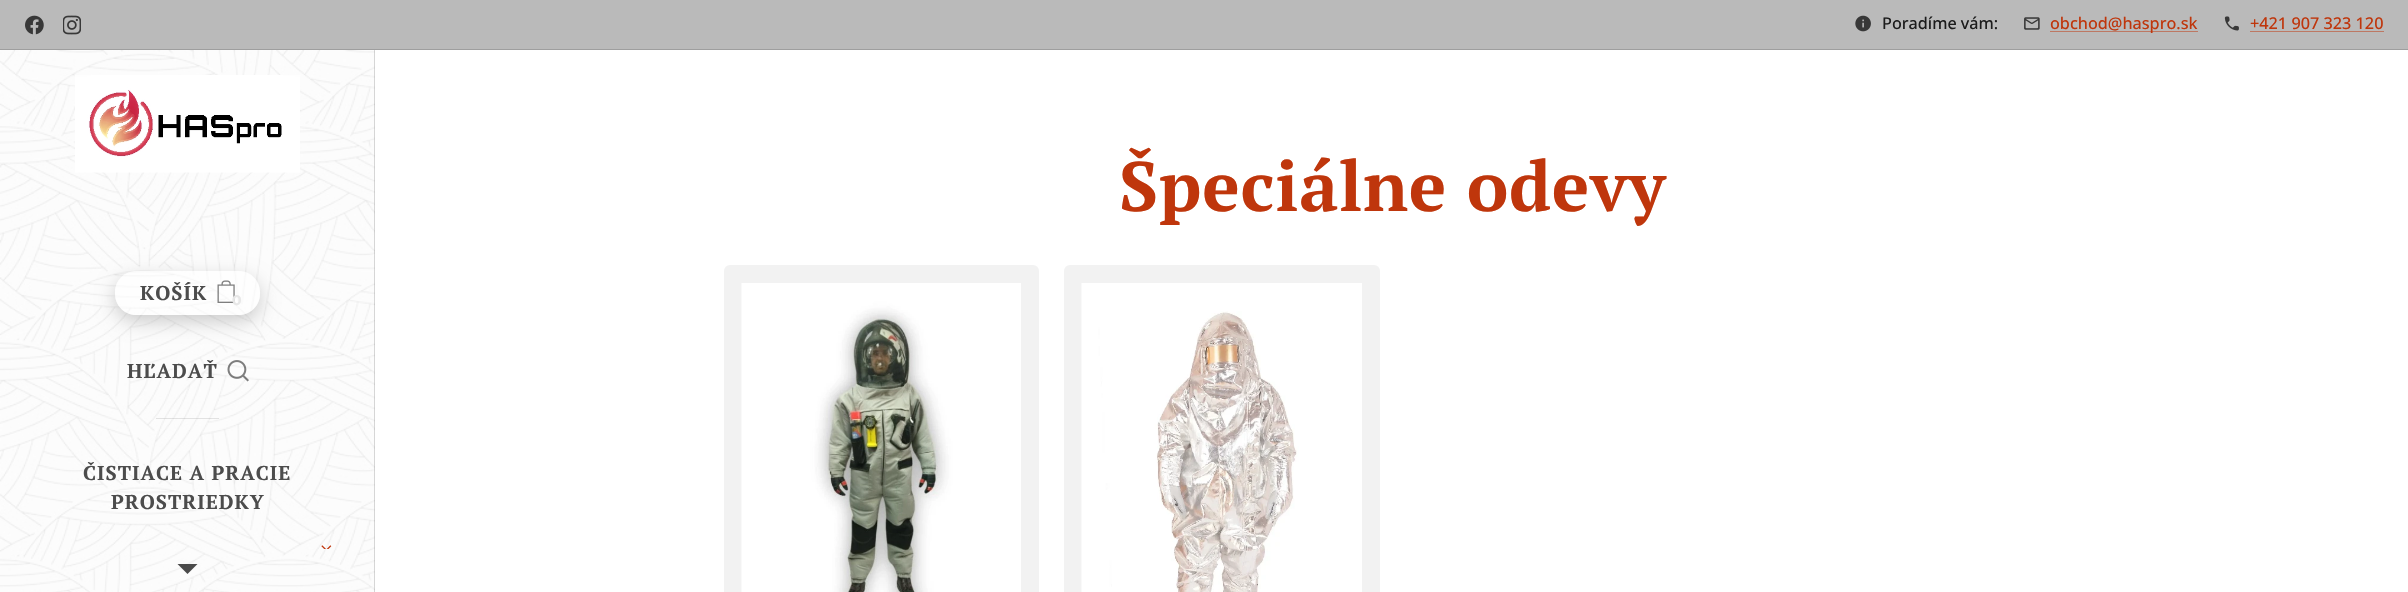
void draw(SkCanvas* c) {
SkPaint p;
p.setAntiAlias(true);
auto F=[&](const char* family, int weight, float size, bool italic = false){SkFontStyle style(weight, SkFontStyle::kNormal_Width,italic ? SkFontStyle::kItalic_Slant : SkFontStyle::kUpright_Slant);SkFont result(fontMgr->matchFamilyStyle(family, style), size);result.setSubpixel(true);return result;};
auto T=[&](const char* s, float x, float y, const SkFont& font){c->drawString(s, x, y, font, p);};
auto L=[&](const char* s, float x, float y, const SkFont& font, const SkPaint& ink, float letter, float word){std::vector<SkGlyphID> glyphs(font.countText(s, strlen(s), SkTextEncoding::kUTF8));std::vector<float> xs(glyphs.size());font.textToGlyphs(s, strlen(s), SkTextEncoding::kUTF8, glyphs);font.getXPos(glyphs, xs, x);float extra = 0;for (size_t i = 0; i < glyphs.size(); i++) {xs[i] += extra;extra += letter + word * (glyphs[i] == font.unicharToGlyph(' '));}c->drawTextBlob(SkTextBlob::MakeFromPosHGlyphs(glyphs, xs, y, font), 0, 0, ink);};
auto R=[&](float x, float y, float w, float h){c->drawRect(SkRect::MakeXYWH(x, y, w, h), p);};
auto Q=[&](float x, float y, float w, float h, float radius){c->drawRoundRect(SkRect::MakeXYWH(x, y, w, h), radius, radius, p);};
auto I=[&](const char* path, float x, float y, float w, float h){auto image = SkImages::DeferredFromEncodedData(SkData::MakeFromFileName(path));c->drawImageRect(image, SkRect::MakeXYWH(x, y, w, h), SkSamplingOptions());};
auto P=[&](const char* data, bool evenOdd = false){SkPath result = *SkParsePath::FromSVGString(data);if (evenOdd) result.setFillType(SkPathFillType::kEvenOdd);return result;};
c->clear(0xffffffff);
p.setColor(0xffbababa);
R(0,0,2408,49);
I("1.png",25,15,19,20);
I("2.png",63,15,18,20);
I("3.png",1855,15,16,17);
auto f1 = F("Open Sans",500,16.25);
p.setColor(0xff1c1c1c);
T("Poradíme vám:",1882,29,f1);
I("4.png",2024,17,16,13);
p.setColor(0xffbd7863);
R(2050,31,148,1);
p.setColor(0xffbf360c);
T("obchod@haspro.sk",2050,29,f1);
I("5.png",2224,16,15,15);
T("+421 907 323 120",2250,29,f1);
p.setColor(0xffbd7863);
R(2250,31,134,1);
p.setColor(0xff9e9e9e);
R(0,49,2408,1);
I("6.png",0,50,375,542);
I("7.png",75,75,225,98);
c->save();
c->clipPath(P("M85 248h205v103h-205zm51 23h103c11.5 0 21 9.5 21 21v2c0 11.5-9.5 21-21 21h-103c-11.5 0-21-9.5-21-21v-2c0-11.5 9.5-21 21-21z",true),true);
p.setColor(0x33000000);
p.setMaskFilter(SkMaskFilter::MakeBlur(kNormal_SkBlurStyle, 9.5));
c->drawRoundRect(SkRect::MakeXYWH(115,278,145,43),21,21,p);
p.setMaskFilter(nullptr);
c->restore();
p.setColor(0x80ffffff);
Q(115,271,145,44,21);
auto f2 = F("PT Serif",700,20);
p.setColor(0xff4c4c4c);
L("KOŠÍK",140,300,f2,p,1,0);
I("8.png",217,280,18,23);
auto f3 = F("Montserrat",700,14);
p.setColor(0xffe7e7e7);
T("0",232,305,f3);
p.setColor(0xff4c4c4c);
L("HĽADAŤ",127,378,f2,p,1,0);
I("9.png",227,360,22,22);
p.setColor(0x1a000000);
R(156,418,63,1);
p.setColor(0xff4c4c4c);
L("ČISTIACE A PRACIE",83,480,f2,p,1,0);
L("PROSTRIEDKY",111,509,f2,p,1,0);
I("10.png",321,545,11,4);
p.setColor(0xb3000000);
c->drawPath(P("M177.5 564h20l-10 10z"),p);
p.setColor(0x26000000);
R(374,50,1,542);
auto f4 = F("PT Serif",700,70);
p.setColor(0xffbf360c);
L("Špeciálne odevy",1119,211,f4,p,.75,0);
p.setColor(0xfff2f2f2);
Q(724,265,315,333,6);
I("11.png",741,283,280,309);
Q(1064,265,316,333,6);
I("12.png",1081,283,281,309);
}
